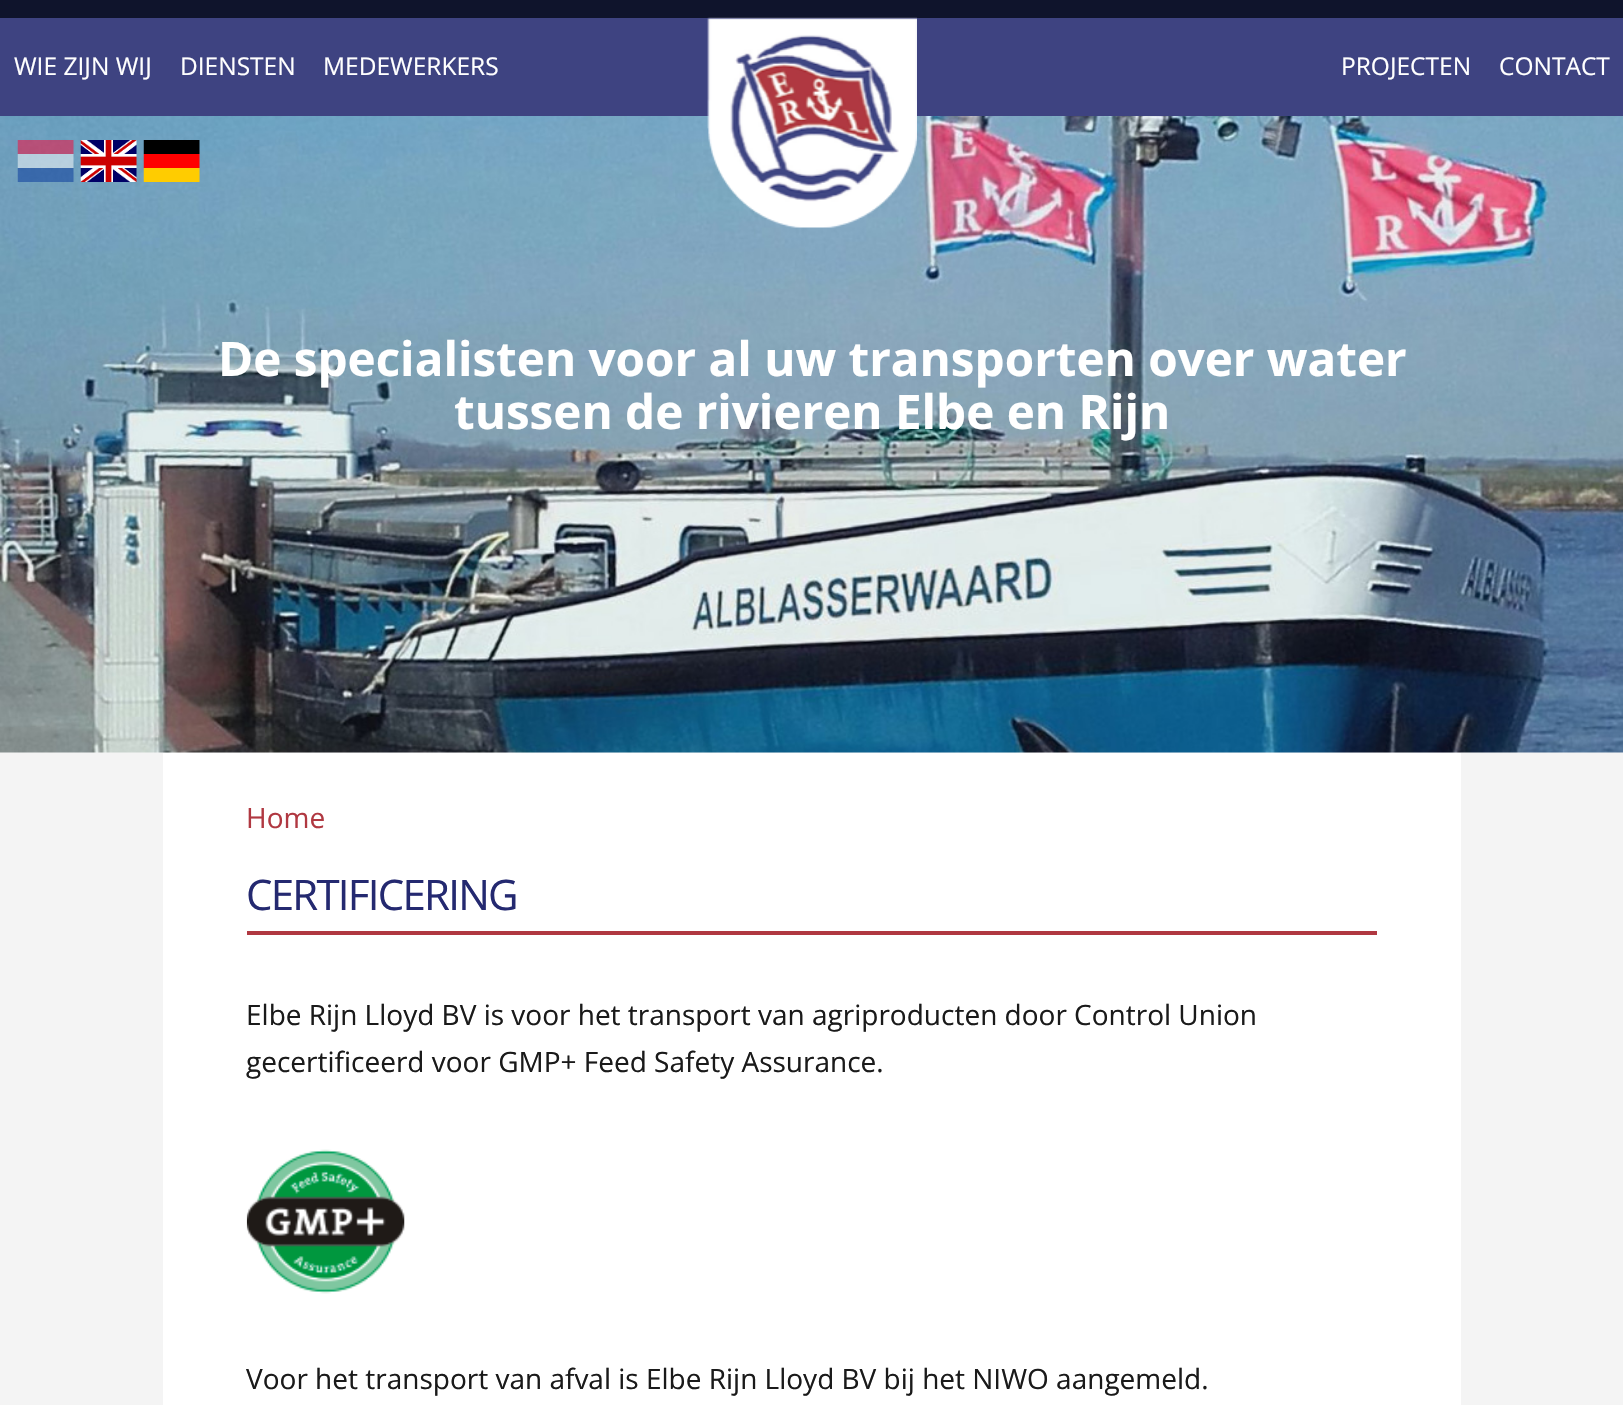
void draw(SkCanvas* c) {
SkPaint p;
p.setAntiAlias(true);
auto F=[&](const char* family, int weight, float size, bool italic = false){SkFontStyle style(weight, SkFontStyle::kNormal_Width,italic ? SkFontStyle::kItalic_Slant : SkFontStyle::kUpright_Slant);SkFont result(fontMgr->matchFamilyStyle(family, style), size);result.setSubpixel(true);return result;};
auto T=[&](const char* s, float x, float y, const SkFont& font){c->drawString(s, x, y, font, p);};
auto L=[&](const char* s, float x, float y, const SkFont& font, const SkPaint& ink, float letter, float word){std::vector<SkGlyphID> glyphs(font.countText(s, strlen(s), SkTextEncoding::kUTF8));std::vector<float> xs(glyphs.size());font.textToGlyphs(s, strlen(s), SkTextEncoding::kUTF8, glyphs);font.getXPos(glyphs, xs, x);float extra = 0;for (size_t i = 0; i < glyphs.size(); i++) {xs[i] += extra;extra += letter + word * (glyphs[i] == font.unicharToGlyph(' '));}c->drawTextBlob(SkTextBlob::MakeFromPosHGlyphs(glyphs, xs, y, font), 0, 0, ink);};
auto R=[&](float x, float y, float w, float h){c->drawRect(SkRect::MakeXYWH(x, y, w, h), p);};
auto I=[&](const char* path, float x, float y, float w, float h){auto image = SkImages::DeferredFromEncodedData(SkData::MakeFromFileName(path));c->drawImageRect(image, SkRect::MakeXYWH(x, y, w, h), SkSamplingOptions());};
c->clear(0xfff4f4f4);
p.setColor(0xff3e4381);
R(0,18,1623,98);
auto f1 = F("Open Sans",400,24.5);
p.setColor(0xffffffff);
T("WIE ZIJN WIJ",14,75,f1);
T("DIENSTEN",180,75,f1);
T("MEDEWERKERS",323,75,f1);
T("PROJECTEN",1341,75,f1);
T("CONTACT",1499,75,f1);
I("1.png",0,116,1623,637);
p.setColor(0xff0f142c);
R(0,0,1623,18);
I("2.png",17,140,57,42);
I("3.png",80,140,57,42);
I("4.png",143,140,57,42);
I("5.png",707,17,210,211);
auto f2 = F("Open Sans",700,47.6);
p.setColor(0xffffffff);
T("De specialisten voor al uw transporten over water",218,376,f2);
T("tussen de rivieren Elbe en Rijn",454,429,f2);
R(163,753,1298,652);
auto f3 = F("Open Sans",400,28);
p.setColor(0xffb03841);
T("Home",246,828,f3);
R(247,931,1130,4);
auto f4 = F("Open Sans",400,42);
p.setColor(0xff242970);
L("CERTIFICERING",246,910,f4,p,-1.75,0);
p.setColor(0xff1a1a1a);
T("Elbe Rijn Lloyd BV is voor het transport van agriproducten door Control Union",246,1025,f3);
T("gecertificeerd voor GMP+ Feed Safety Assurance.",246,1072,f3);
I("6.png",246,1149,159,145);
T("Voor het transport van afval is Elbe Rijn Lloyd BV bij het NIWO aangemeld.",246,1389,f3);
}
